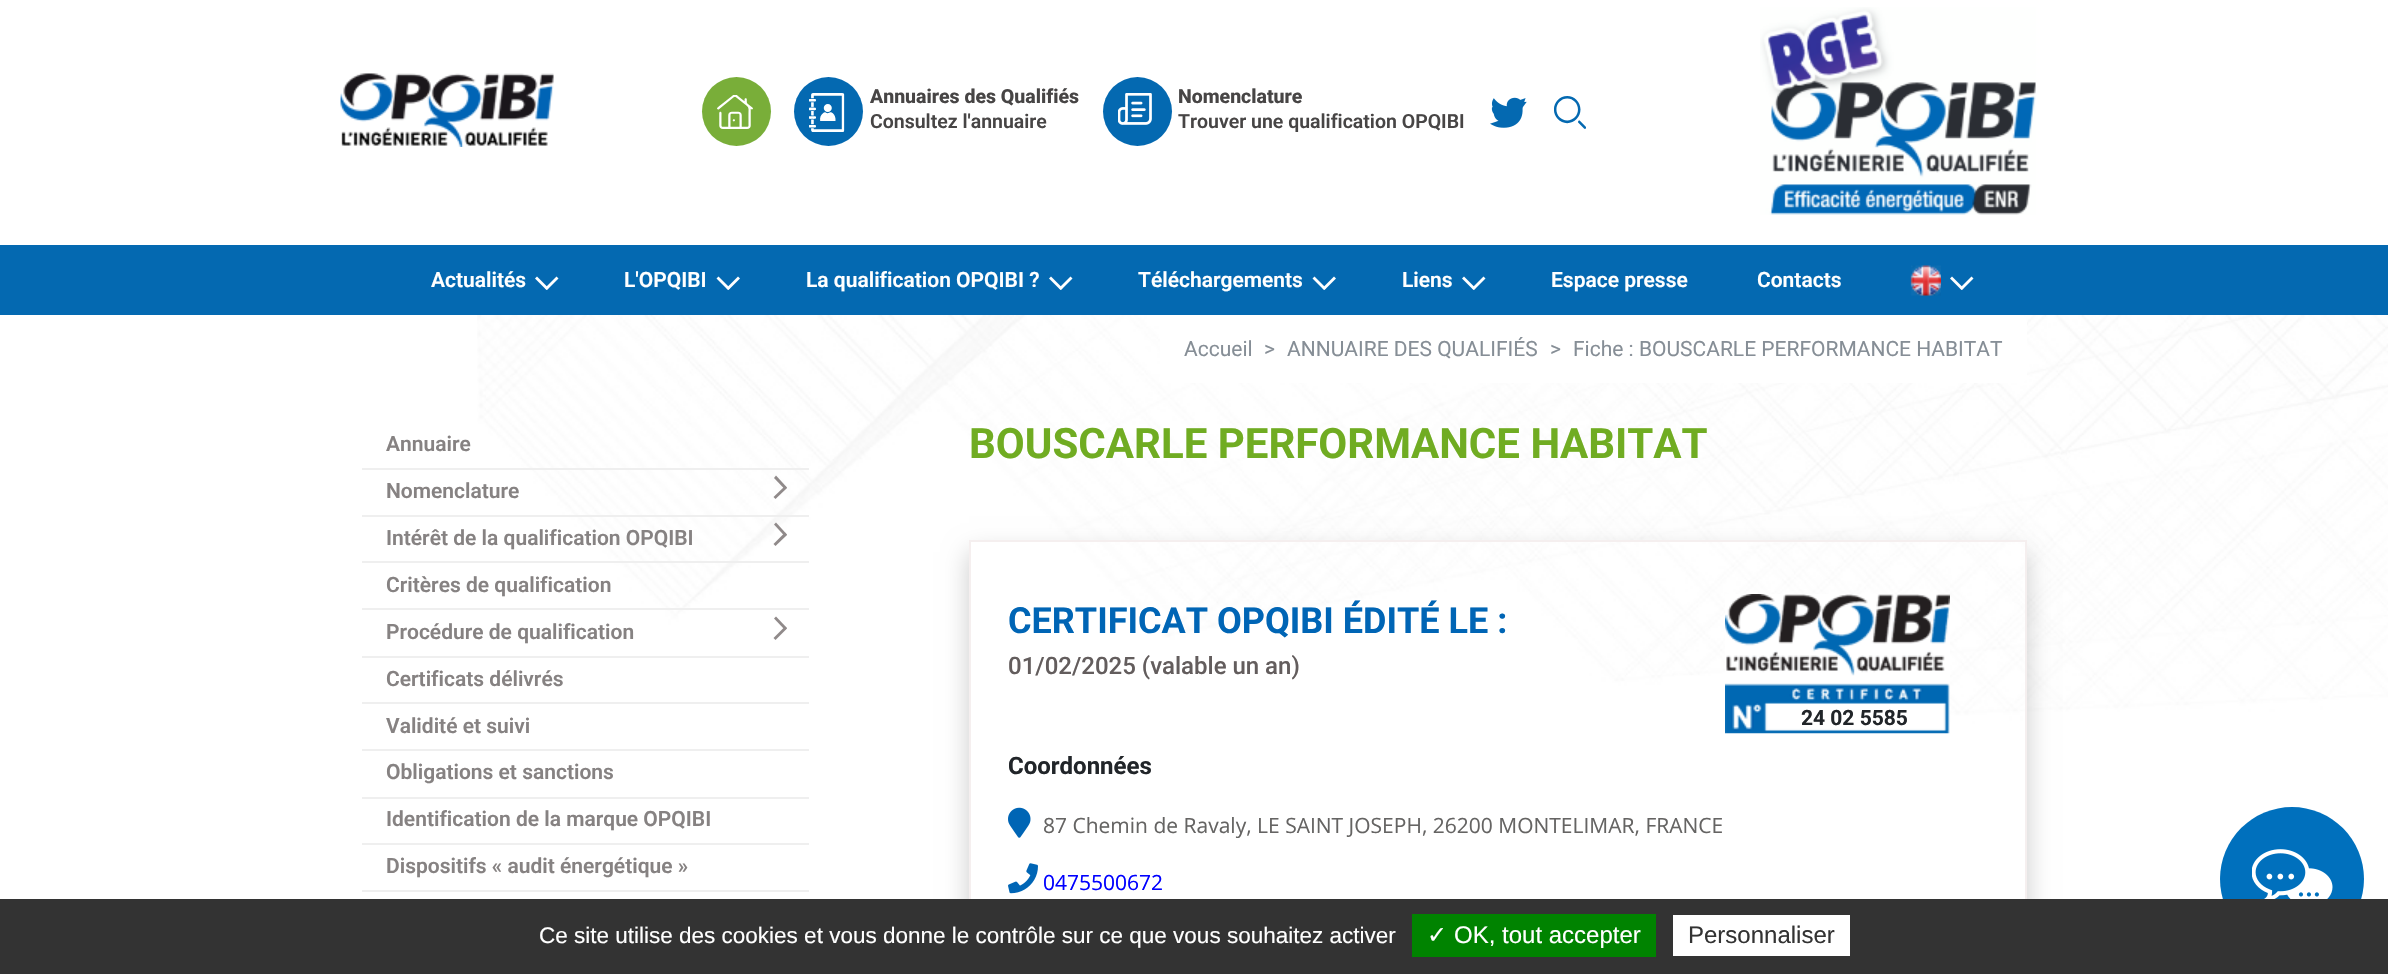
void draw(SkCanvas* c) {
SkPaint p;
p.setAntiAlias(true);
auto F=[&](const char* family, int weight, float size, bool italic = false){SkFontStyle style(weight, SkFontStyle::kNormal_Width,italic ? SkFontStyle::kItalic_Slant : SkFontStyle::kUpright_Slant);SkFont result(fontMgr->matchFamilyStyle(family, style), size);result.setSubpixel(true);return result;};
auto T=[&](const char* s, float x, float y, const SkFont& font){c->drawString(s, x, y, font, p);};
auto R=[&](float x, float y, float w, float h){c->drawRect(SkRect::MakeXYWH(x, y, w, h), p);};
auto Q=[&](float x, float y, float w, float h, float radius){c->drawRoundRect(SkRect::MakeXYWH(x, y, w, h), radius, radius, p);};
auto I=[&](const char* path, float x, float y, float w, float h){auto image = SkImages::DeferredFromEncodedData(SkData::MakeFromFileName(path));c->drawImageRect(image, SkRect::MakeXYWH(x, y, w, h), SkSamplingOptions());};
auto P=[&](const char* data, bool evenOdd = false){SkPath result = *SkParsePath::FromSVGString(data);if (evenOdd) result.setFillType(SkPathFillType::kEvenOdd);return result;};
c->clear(0xffffffff);
I("1.png",340,73,214,74);
p.setColor(0xff79ae39);
c->drawCircle(736.5,111.5,34.5,p);
I("2.png",717,95,36,34);
p.setColor(0xff0469b1);
c->drawCircle(828.5,111.5,34.5,p);
I("3.png",809,93,36,39);
auto f1 = F("Roboto",800,19.5);
p.setColor(0xff474545);
T("Annuaires des Qualifiés",870,103,f1);
auto f2 = F("Roboto",600,19.5);
T("Consultez l'annuaire",870,128,f2);
p.setColor(0xff0469b1);
c->drawCircle(1137.5,111.5,34.5,p);
I("4.png",1118,93,34,32);
p.setColor(0xff474545);
T("Nomenclature",1178,103,f1);
T("Trouver une qualification OPQIBI",1178,128,f2);
I("5.png",1490,97,37,31);
I("6.png",1554,96,32,33);
I("7.png",1760,7,276,208);
p.setColor(0xff0469b1);
R(0,245,2388,70);
auto f3 = F("Roboto",600,21);
p.setColor(0xffffffff);
T("Actualités",431,287,f3);
c->drawPath(P("M556.5 276.5l2 2l-11.5 11.5l-2-2z"),p);
c->drawPath(P("M537 276.5l11.5 11.5l-2 2l-11.5-11.5z"),p);
T("L'OPQIBI",624,287,f3);
c->drawPath(P("M738 276.5l2 2l-11.5 11.5l-2-2z"),p);
c->drawPath(P("M718.5 276.5l11.5 11.5l-2 2l-11.5-11.5z"),p);
T("La qualification OPQIBI ?",806,287,f3);
c->drawPath(P("M1070.5 276.5l2 2l-11.5 11.5l-2-2z"),p);
c->drawPath(P("M1051 276.5l11.5 11.5l-2 2l-11.5-11.5z"),p);
T("Téléchargements",1138,287,f3);
c->drawPath(P("M1334 276.5l2 2l-11.5 11.5l-2-2z"),p);
c->drawPath(P("M1314.5 276.5l11.5 11.5l-2 2l-11.5-11.5z"),p);
T("Liens",1402,287,f3);
c->drawPath(P("M1483.5 276.5l2 2l-11.5 11.5l-2-2z"),p);
c->drawPath(P("M1464 276.5l11.5 11.5l-2 2l-11.5-11.5z"),p);
T("Espace presse",1551,287,f3);
T("Contacts",1757,287,f3);
I("8.png",1910,265,31,31);
c->drawPath(P("M1971.5 276.5l2 2l-11.5 11.5l-2-2z"),p);
c->drawPath(P("M1952 276.5l11.5 11.5l-2 2l-11.5-11.5z"),p);
I("9.png",477,315,1911,584);
Q(1160,315,867,68,6);
auto f4 = F("Roboto",400,21);
p.setColor(0xff868e96);
T("Accueil",1184,356,f4);
T(">",1264,356,f4);
T("ANNUAIRE DES QUALIFIÉS",1287,356,f4);
T(">",1550,356,f4);
T("Fiche : BOUSCARLE PERFORMANCE HABITAT",1573,356,f4);
p.setColor(0xffefefef);
R(362,468,447,2);
p.setColor(0xff868282);
T("Annuaire",386,451,f3);
p.setColor(0xffefefef);
R(362,515,447,2);
p.setColor(0xff868282);
T("Nomenclature",386,498,f3);
p.setColor(0xff908a8a);
c->drawPath(P("M774 478l2-2.5l11 12l-2 2z"),p);
c->drawPath(P("M773.5 497l11.5-11l2 2l-11.5 11z"),p);
p.setColor(0xffefefef);
R(362,561,447,2);
p.setColor(0xff868282);
T("Intérêt de la qualification OPQIBI",386,545,f3);
p.setColor(0xff908a8a);
c->drawPath(P("M774 524.5l2-2l11 12l-2 2z"),p);
c->drawPath(P("M773.5 544l11.5-11.5l2 2.5l-11.5 11z"),p);
p.setColor(0xffefefef);
R(362,608,447,2);
p.setColor(0xff868282);
T("Critères de qualification",386,592,f3);
p.setColor(0xffefefef);
R(362,656,447,2);
p.setColor(0xff868282);
T("Procédure de qualification",386,639,f3);
p.setColor(0xff908a8a);
c->drawPath(P("M774 618.5l2-2l11 11.5l-2 2z"),p);
c->drawPath(P("M773.5 638l11.5-11.5l2 2l-11.5 11.5z"),p);
p.setColor(0xffefefef);
R(362,702,447,2);
p.setColor(0xff868282);
T("Certificats délivrés",386,686,f3);
p.setColor(0xffefefef);
R(362,749,447,2);
p.setColor(0xff868282);
T("Validité et suivi",386,733,f3);
p.setColor(0xffefefef);
R(362,797,447,2);
p.setColor(0xff868282);
T("Obligations et sanctions",386,779,f3);
p.setColor(0xffefefef);
R(362,843,447,2);
p.setColor(0xff868282);
T("Identification de la marque OPQIBI",386,826,f3);
p.setColor(0xffefefef);
R(362,890,447,2);
p.setColor(0xff868282);
T("Dispositifs « audit énergétique »",386,873,f3);
auto f5 = F("Roboto",700,42);
p.setColor(0xff70ac22);
T("BOUSCARLE PERFORMANCE HABITAT",969,458,f5);
c->save();
c->clipPath(P("M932 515h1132v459h-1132zm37 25h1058v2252h-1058z",true),true);
p.setColor(0x33000000);
p.setMaskFilter(SkMaskFilter::MakeBlur(kNormal_SkBlurStyle, 12));
c->drawRect(SkRect::MakeXYWH(969,552,1058,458),p);
p.setMaskFilter(nullptr);
c->restore();
p.setStroke(true);
p.setStrokeWidth(2);
p.setColor(0xfff5efef);
c->drawRect(SkRect::MakeXYWH(970,541,1056,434),p);
auto f6 = F("Roboto",700,36);
p.setStroke(false);
p.setColor(0xff0065b5);
T("CERTIFICAT OPQIBI ÉDITÉ LE :",1008,633,f6);
auto f7 = F("Roboto",500,24);
p.setColor(0xff635d5d);
T("01/02/2025 (valable un an)",1008,674,f7);
I("10.png",1725,594,225,140);
auto f8 = F("Roboto",700,21);
p.setColor(0xff212529);
T("24 02 5585",1801,725,f8);
auto f9 = F("Roboto",700,24);
T("Coordonnées",1008,774,f9);
I("11.png",1008,807,23,31);
auto f10 = F("Open Sans",400,21);
p.setColor(0xff656463);
T("87 Chemin de Ravaly, LE SAINT JOSEPH, 26200 MONTELIMAR, FRANCE",1043,833,f10);
I("12.png",1008,863,30,31);
p.setColor(0xff0000ff);
T("0475500672",1043,890,f10);
p.setColor(0xff0070bd);
c->drawCircle(2292,879,72,p);
I("13.png",2252,849,81,50);
p.setColor(0xff333333);
R(0,899,2388,75);
auto f11 = F("Liberation Sans",400,22.5);
p.setColor(0xffffffff);
T("Ce site utilise des cookies et vous donne le contrôle sur ce que vous souhaitez activer",539,943,f11);
p.setColor(0xff008300);
R(1412,914,244,43);
auto f12 = F("DejaVu Sans",400,24);
p.setColor(0xffffffff);
T("✓",1427,943,f12);
auto f13 = F("Liberation Sans",400,24);
T("OK, tout accepter",1454,943,f13);
R(1673,915,177,41);
p.setColor(0xff333333);
T("Personnaliser",1688,943,f13);
}
